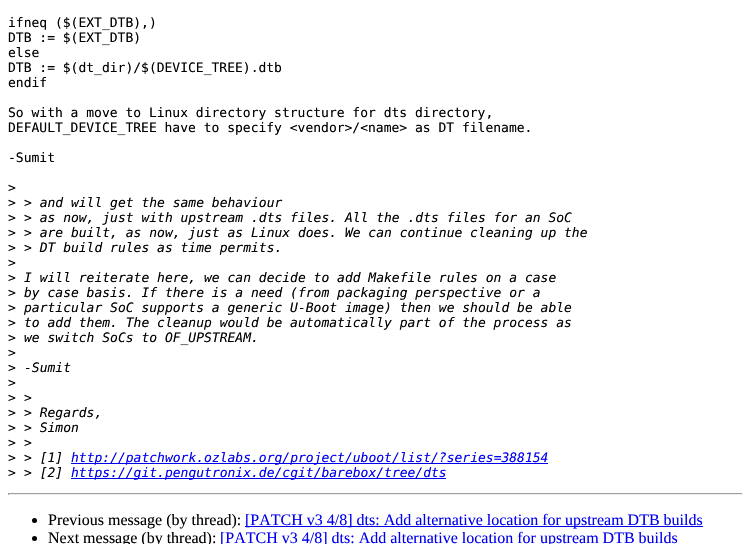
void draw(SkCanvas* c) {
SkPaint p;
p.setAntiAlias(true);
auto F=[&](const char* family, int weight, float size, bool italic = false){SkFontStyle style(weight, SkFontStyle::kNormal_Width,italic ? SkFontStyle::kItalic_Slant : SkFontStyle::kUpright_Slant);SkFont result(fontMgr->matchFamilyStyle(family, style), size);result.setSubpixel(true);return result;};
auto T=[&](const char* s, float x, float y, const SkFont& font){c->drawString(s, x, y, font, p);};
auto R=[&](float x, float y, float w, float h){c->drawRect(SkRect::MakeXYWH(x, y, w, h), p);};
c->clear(0xffffffff);
auto f1 = F("DejaVu Sans Mono",400,13);
p.setColor(0xff000000);
T("ifneq ($(EXT_DTB),)",8,27,f1);
T("DTB := $(EXT_DTB)",8,42,f1);
T("else",8,57,f1);
T("DTB := $(dt_dir)/$(DEVICE_TREE).dtb",8,72,f1);
T("endif",8,87,f1);
T("So with a move to Linux directory structure for dts directory,",8,117,f1);
T("DEFAULT_DEVICE_TREE have to specify <vendor>/<name> as DT filename.",8,132,f1);
T("-Sumit",8,162,f1);
T(">",8,192,f1);
T(">",8,207,f1);
auto f2 = F("DejaVu Sans Mono",400,13,true);
T("> and will get the same behaviour",24,207,f2);
T(">",8,222,f1);
T("> as now, just with upstream .dts files. All the .dts files for an SoC",24,222,f2);
T(">",8,237,f1);
T("> are built, as now, just as Linux does. We can continue cleaning up the",24,237,f2);
T(">",8,252,f1);
T("> DT build rules as time permits.",24,252,f2);
T(">",8,267,f1);
T(">",8,282,f1);
T("I will reiterate here, we can decide to add Makefile rules on a case",24,282,f2);
T(">",8,297,f1);
T("by case basis. If there is a need (from packaging perspective or a",24,297,f2);
T(">",8,312,f1);
T("particular SoC supports a generic U-Boot image) then we should be able",24,312,f2);
T(">",8,327,f1);
T("to add them. The cleanup would be automatically part of the process as",24,327,f2);
T(">",8,342,f1);
T("we switch SoCs to OF_UPSTREAM.",24,342,f2);
T(">",8,357,f1);
T(">",8,372,f1);
T("-Sumit",24,372,f2);
T(">",8,387,f1);
T(">",8,402,f1);
T(">",24,402,f2);
T(">",8,417,f1);
T("> Regards,",24,417,f2);
T(">",8,432,f1);
T("> Simon",24,432,f2);
T(">",8,447,f1);
T(">",24,447,f2);
T(">",8,462,f1);
T("> [1]",24,462,f2);
p.setColor(0xff0000ee);
R(71,463,477,1);
T("http://patchwork.ozlabs.org/project/uboot/list/?series=388154",71,462,f2);
p.setColor(0xff000000);
T(">",8,477,f1);
T("> [2]",24,477,f2);
p.setColor(0xff0000ee);
R(71,478,375,1);
T("https://git.pengutronix.de/cgit/barebox/tree/dts",71,477,f2);
p.setColor(0xff9f9f9f);
R(8,493,735,1);
p.setColor(0xffeeeeee);
R(742,493,1,2);
R(8,494,735,1);
p.setColor(0xff9f9f9f);
R(8,493,1,2);
p.setColor(0xff000000);
c->drawCircle(34.5,520.5,2.5,p);
auto f3 = F("Liberation Serif",400,16);
T("Previous message (by thread):",48,525,f3);
p.setColor(0xff0000ee);
R(245,526,458,1);
T("[PATCH v3 4/8] dts: Add alternative location for upstream DTB builds",245,525,f3);
p.setColor(0xff000000);
c->drawCircle(34.5,538.5,2.5,p);
T("Next message (by thread):",48,543,f3);
p.setColor(0xff0000ee);
T("[PATCH v3 4/8] dts: Add alternative location for upstream DTB builds",220,543,f3);
}
